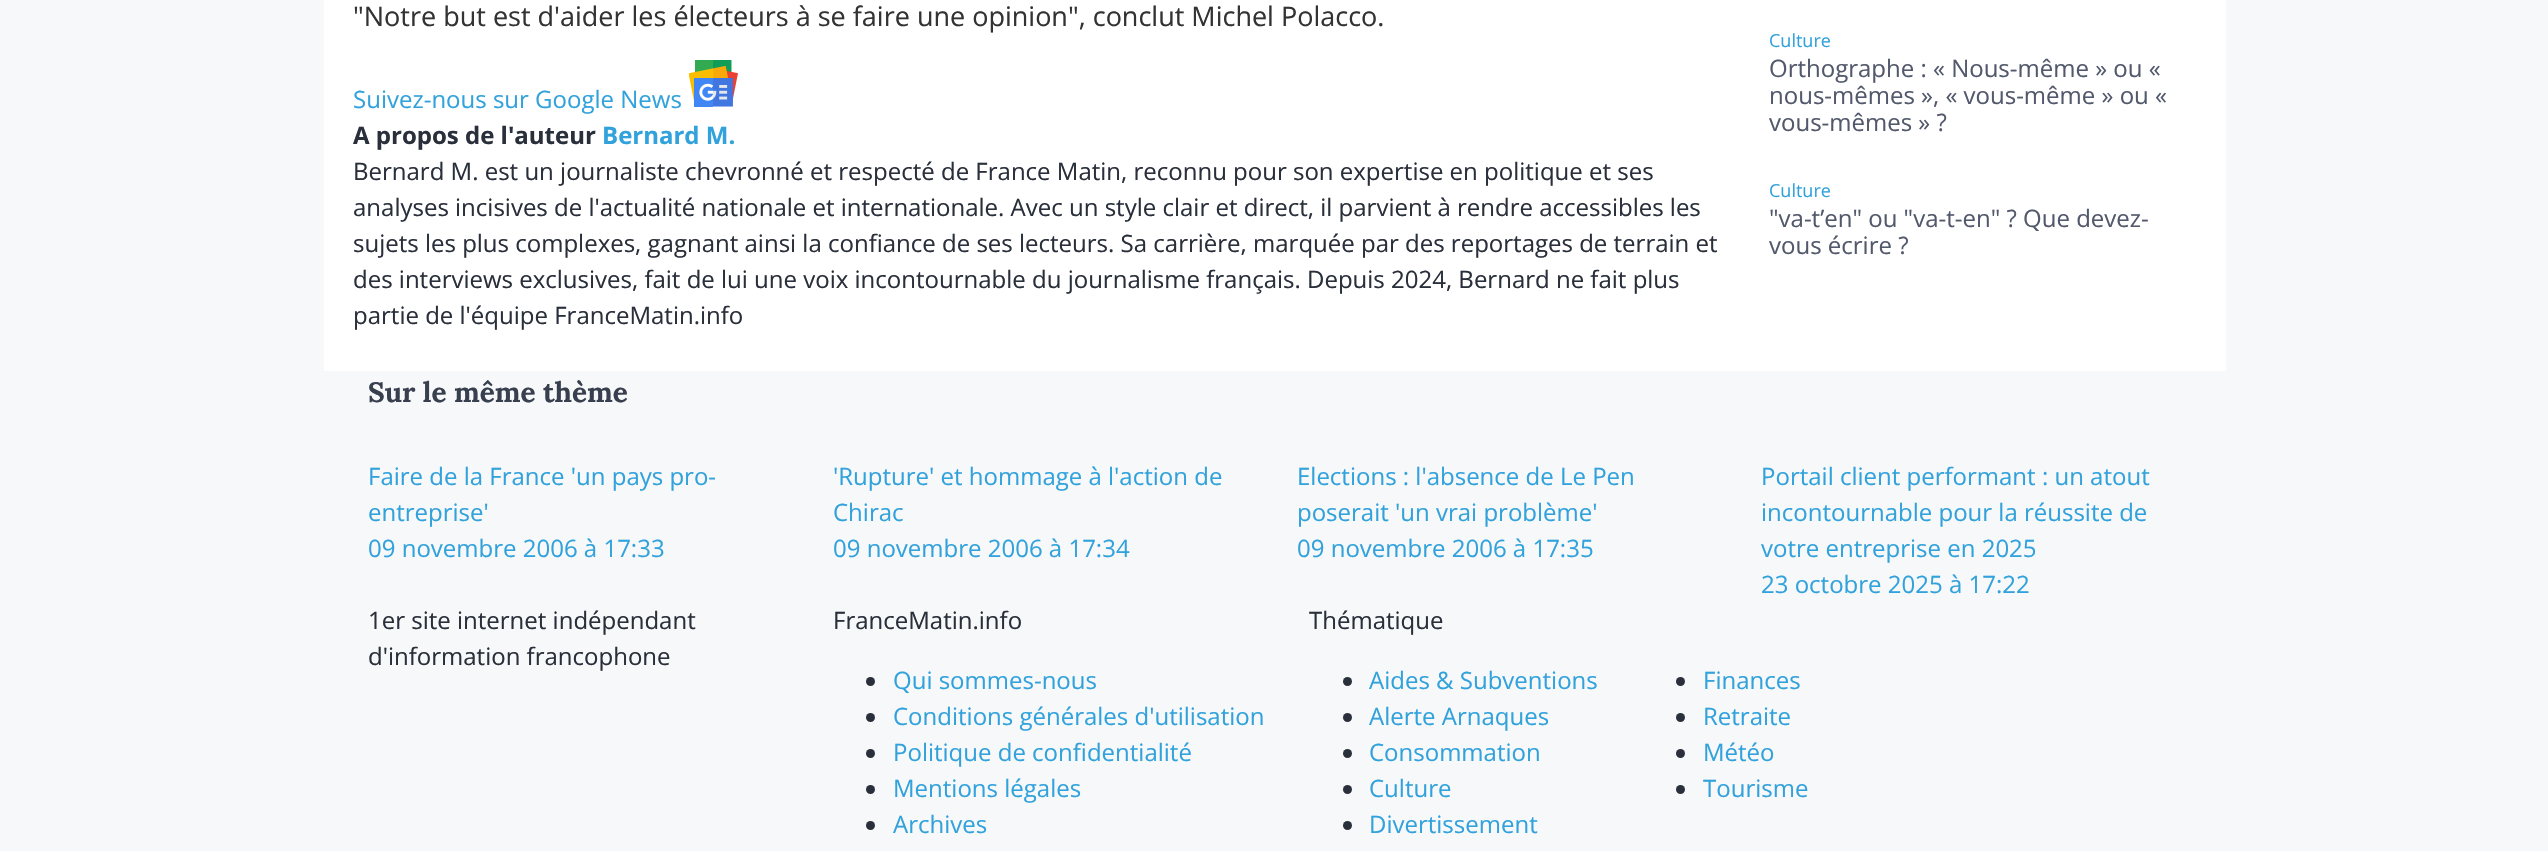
void draw(SkCanvas* c) {
SkPaint p;
p.setAntiAlias(true);
auto F=[&](const char* family, int weight, float size, bool italic = false){SkFontStyle style(weight, SkFontStyle::kNormal_Width,italic ? SkFontStyle::kItalic_Slant : SkFontStyle::kUpright_Slant);SkFont result(fontMgr->matchFamilyStyle(family, style), size);result.setSubpixel(true);return result;};
auto T=[&](const char* s, float x, float y, const SkFont& font){c->drawString(s, x, y, font, p);};
auto R=[&](float x, float y, float w, float h){c->drawRect(SkRect::MakeXYWH(x, y, w, h), p);};
auto I=[&](const char* path, float x, float y, float w, float h){auto image = SkImages::DeferredFromEncodedData(SkData::MakeFromFileName(path));c->drawImageRect(image, SkRect::MakeXYWH(x, y, w, h), SkSamplingOptions());};
c->clear(0xfff7f8f9);
p.setColor(0xffffffff);
R(324,0,1902,371);
auto f1 = F("Open Sans",400,27);
p.setColor(0xff333333);
T("\"Notre but est d'aider les électeurs à se faire une opinion\", conclut Michel Polacco.",353,26,f1);
auto f2 = F("Open Sans",400,24);
p.setColor(0xff32a2dc);
T("Suivez-nous sur Google News",353,108,f2);
I("1.png",689,60,49,47);
auto f3 = F("Open Sans",700,24);
p.setColor(0xff2a303b);
T("A propos de l'auteur",353,144,f3);
p.setColor(0xff32a2dc);
T("Bernard M.",602,144,f3);
p.setColor(0xff2a303b);
T("Bernard M. est un journaliste chevronné et respecté de France Matin, reconnu pour son expertise en politique et ses",353,180,f2);
T("analyses incisives de l'actualité nationale et internationale. Avec un style clair et direct, il parvient à rendre accessibles les",353,216,f2);
T("sujets les plus complexes, gagnant ainsi la confiance de ses lecteurs. Sa carrière, marquée par des reportages de terrain et",353,252,f2);
T("des interviews exclusives, fait de lui une voix incontournable du journalisme français. Depuis 2024, Bernard ne fait plus",353,288,f2);
T("partie de l'équipe FranceMatin.info",353,324,f2);
auto f4 = F("Open Sans",400,18);
p.setColor(0xff32a2dc);
T("Culture",1769,47,f4);
p.setColor(0xff53596c);
T("Orthographe : « Nous-même » ou «",1769,77,f2);
T("nous-mêmes », « vous-même » ou «",1769,104,f2);
T("vous-mêmes » ?",1769,131,f2);
p.setColor(0xff32a2dc);
T("Culture",1769,197,f4);
p.setColor(0xff53596c);
T("\"va-t’en\" ou \"va-t-en\" ? Que devez-",1769,227,f2);
T("vous écrire ?",1769,254,f2);
auto f5 = F("Lora",700,28);
p.setColor(0xff383f4e);
T("Sur le même thème",368,402,f5);
p.setColor(0xff32a2dc);
T("Faire de la France 'un pays pro-",368,485,f2);
T("entreprise'",368,521,f2);
T("09 novembre 2006 à 17:33",368,557,f2);
T("'Rupture' et hommage à l'action de",833,485,f2);
T("Chirac",833,521,f2);
T("09 novembre 2006 à 17:34",833,557,f2);
T("Elections : l'absence de Le Pen",1297,485,f2);
T("poserait 'un vrai problème'",1297,521,f2);
T("09 novembre 2006 à 17:35",1297,557,f2);
T("Portail client performant : un atout",1761,485,f2);
T("incontournable pour la réussite de",1761,521,f2);
T("votre entreprise en 2025",1761,557,f2);
T("23 octobre 2025 à 17:22",1761,593,f2);
p.setColor(0xff2a303b);
T("1er site internet indépendant",368,629,f2);
T("d'information francophone",368,665,f2);
T("FranceMatin.info",833,629,f2);
c->drawCircle(870.5,681.5,4.5,p);
p.setColor(0xff32a2dc);
T("Qui sommes-nous",893,689,f2);
p.setColor(0xff2a303b);
c->drawCircle(870.5,717.5,4.5,p);
p.setColor(0xff32a2dc);
T("Conditions générales d'utilisation",893,725,f2);
p.setColor(0xff2a303b);
c->drawCircle(870.5,753.5,4.5,p);
p.setColor(0xff32a2dc);
T("Politique de confidentialité",893,761,f2);
p.setColor(0xff2a303b);
c->drawCircle(870.5,789.5,4.5,p);
p.setColor(0xff32a2dc);
T("Mentions légales",893,797,f2);
p.setColor(0xff2a303b);
c->drawCircle(870.5,825.5,4.5,p);
p.setColor(0xff32a2dc);
T("Archives",893,833,f2);
p.setColor(0xff2a303b);
T("Thématique",1309,629,f2);
c->drawCircle(1347.5,681.5,4.5,p);
p.setColor(0xff32a2dc);
T("Aides & Subventions",1369,689,f2);
p.setColor(0xff2a303b);
c->drawCircle(1347.5,717.5,4.5,p);
p.setColor(0xff32a2dc);
T("Alerte Arnaques",1369,725,f2);
p.setColor(0xff2a303b);
c->drawCircle(1347.5,753.5,4.5,p);
p.setColor(0xff32a2dc);
T("Consommation",1369,761,f2);
p.setColor(0xff2a303b);
c->drawCircle(1347.5,789.5,4.5,p);
p.setColor(0xff32a2dc);
T("Culture",1369,797,f2);
p.setColor(0xff2a303b);
c->drawCircle(1347.5,825.5,4.5,p);
p.setColor(0xff32a2dc);
T("Divertissement",1369,833,f2);
p.setColor(0xff2a303b);
c->drawCircle(1680.5,681.5,4.5,p);
p.setColor(0xff32a2dc);
T("Finances",1703,689,f2);
p.setColor(0xff2a303b);
c->drawCircle(1680.5,717.5,4.5,p);
p.setColor(0xff32a2dc);
T("Retraite",1703,725,f2);
p.setColor(0xff2a303b);
c->drawCircle(1680.5,753.5,4.5,p);
p.setColor(0xff32a2dc);
T("Météo",1703,761,f2);
p.setColor(0xff2a303b);
c->drawCircle(1680.5,789.5,4.5,p);
p.setColor(0xff32a2dc);
T("Tourisme",1703,797,f2);
}
